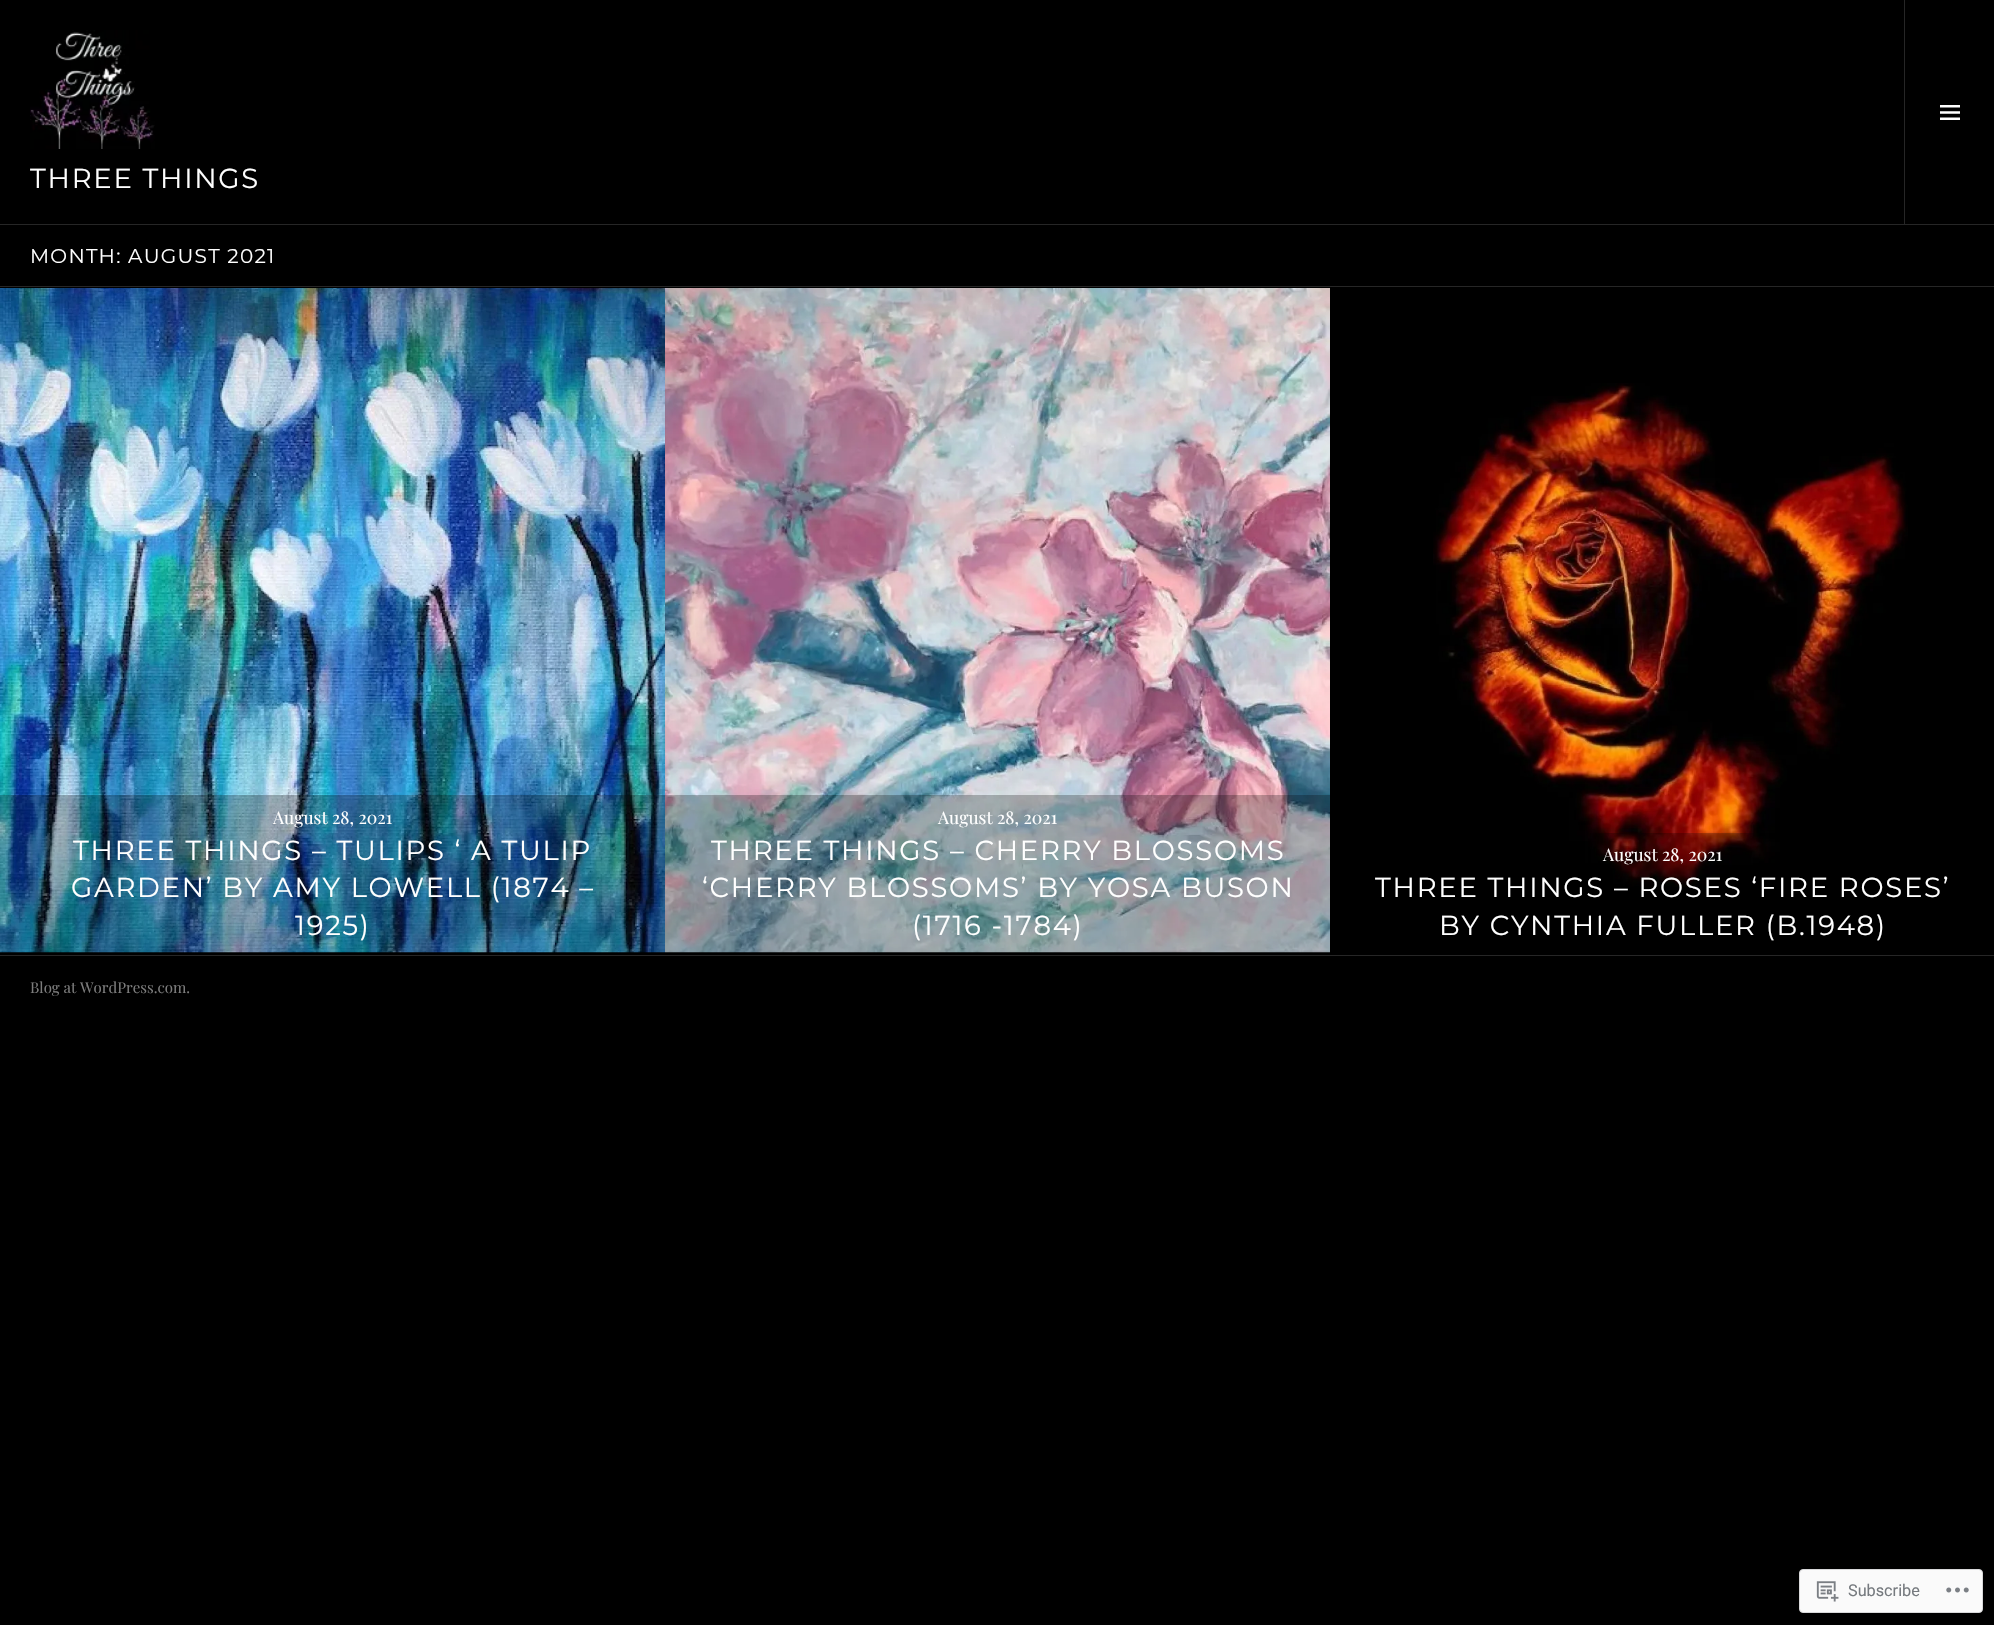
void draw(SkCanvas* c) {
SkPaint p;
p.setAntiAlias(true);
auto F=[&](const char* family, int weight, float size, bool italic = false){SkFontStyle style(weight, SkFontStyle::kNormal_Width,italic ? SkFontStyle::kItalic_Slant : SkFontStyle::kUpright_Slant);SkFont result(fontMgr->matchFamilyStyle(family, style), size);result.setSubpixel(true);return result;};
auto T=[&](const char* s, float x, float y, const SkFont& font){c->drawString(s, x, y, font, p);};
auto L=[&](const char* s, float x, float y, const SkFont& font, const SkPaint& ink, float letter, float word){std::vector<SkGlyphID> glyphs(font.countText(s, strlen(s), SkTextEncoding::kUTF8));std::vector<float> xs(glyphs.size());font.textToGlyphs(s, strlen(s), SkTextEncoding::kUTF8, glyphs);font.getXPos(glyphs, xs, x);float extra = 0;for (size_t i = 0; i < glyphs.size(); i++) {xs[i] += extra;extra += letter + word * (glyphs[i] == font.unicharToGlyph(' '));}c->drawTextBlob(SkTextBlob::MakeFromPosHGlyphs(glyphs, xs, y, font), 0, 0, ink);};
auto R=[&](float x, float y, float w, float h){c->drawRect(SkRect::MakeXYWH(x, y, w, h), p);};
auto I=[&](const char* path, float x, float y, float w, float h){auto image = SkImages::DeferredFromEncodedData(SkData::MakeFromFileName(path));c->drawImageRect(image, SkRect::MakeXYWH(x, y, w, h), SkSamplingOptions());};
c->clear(0xff000000);
p.setColor(0xff262626);
R(0,224,1994,1);
I("1.png",30,30,125,119);
auto f1 = F("Montserrat",400,27.5);
p.setColor(0xffffffff);
L("THREE THINGS",30,188,f1,p,1.75,0);
p.setColor(0xff262626);
R(1904,0,1,224);
I("2.png",1940,105,20,15);
R(0,286,1994,1);
auto f2 = F("Montserrat",400,20);
p.setColor(0xffffffff);
L("MONTH: AUGUST 2021",30,263,f2,p,1.25,0);
I("3.png",0,288,665,665);
p.setColor(0x40000000);
R(0,795,665,158);
auto f3 = F("Playfair Display",400,17.5);
p.setColor(0xffffffff);
T("August 28, 2021",273,824,f3);
L("THREE THINGS – TULIPS ‘ A TULIP",73,860,f1,p,1.75,0);
L("GARDEN’ BY AMY LOWELL (1874 –",71,897,f1,p,1.75,0);
L("1925)",295,935,f1,p,1.75,0);
I("4.png",665,288,665,665);
p.setColor(0x40000000);
R(665,795,665,158);
p.setColor(0xffffffff);
T("August 28, 2021",938,824,f3);
L("THREE THINGS – CHERRY BLOSSOMS",711,860,f1,p,1.75,0);
L("‘CHERRY BLOSSOMS’ BY YOSA BUSON",702,897,f1,p,1.75,0);
L("(1716 -1784)",912,935,f1,p,1.75,0);
I("5.png",1433,383,475,504);
p.setColor(0x40000000);
R(1590,833,171,51);
p.setColor(0xffffffff);
T("August 28, 2021",1603,861,f3);
L("THREE THINGS – ROSES ‘FIRE ROSES’",1375,897,f1,p,1.75,0);
L("BY CYNTHIA FULLER (B.1948)",1439,935,f1,p,1.75,0);
p.setColor(0xff262626);
R(0,955,1994,1);
auto f4 = F("Playfair Display",400,15);
p.setColor(0xff7c7c7c);
T("Blog at WordPress.com.",30,993,f4);
p.setColor(0xfffafafa);
c->drawRoundRect(SkRect::MakeXYWH(1799.5,1569.5,183,43),3.5,3.5,p);
p.setStroke(true);
p.setStrokeWidth(1);
p.setColor(0xffd8d8da);
c->drawRoundRect(SkRect::MakeXYWH(1799.5,1569.5,183,43),3.5,3.5,p);
I("6.png",1816,1581,23,21);
auto f5 = F("Roboto",400,16.25);
p.setStroke(false);
p.setColor(0xff767a7f);
T("Subscribe",1848,1596,f5);
I("7.png",1946,1587,23,6);
}
